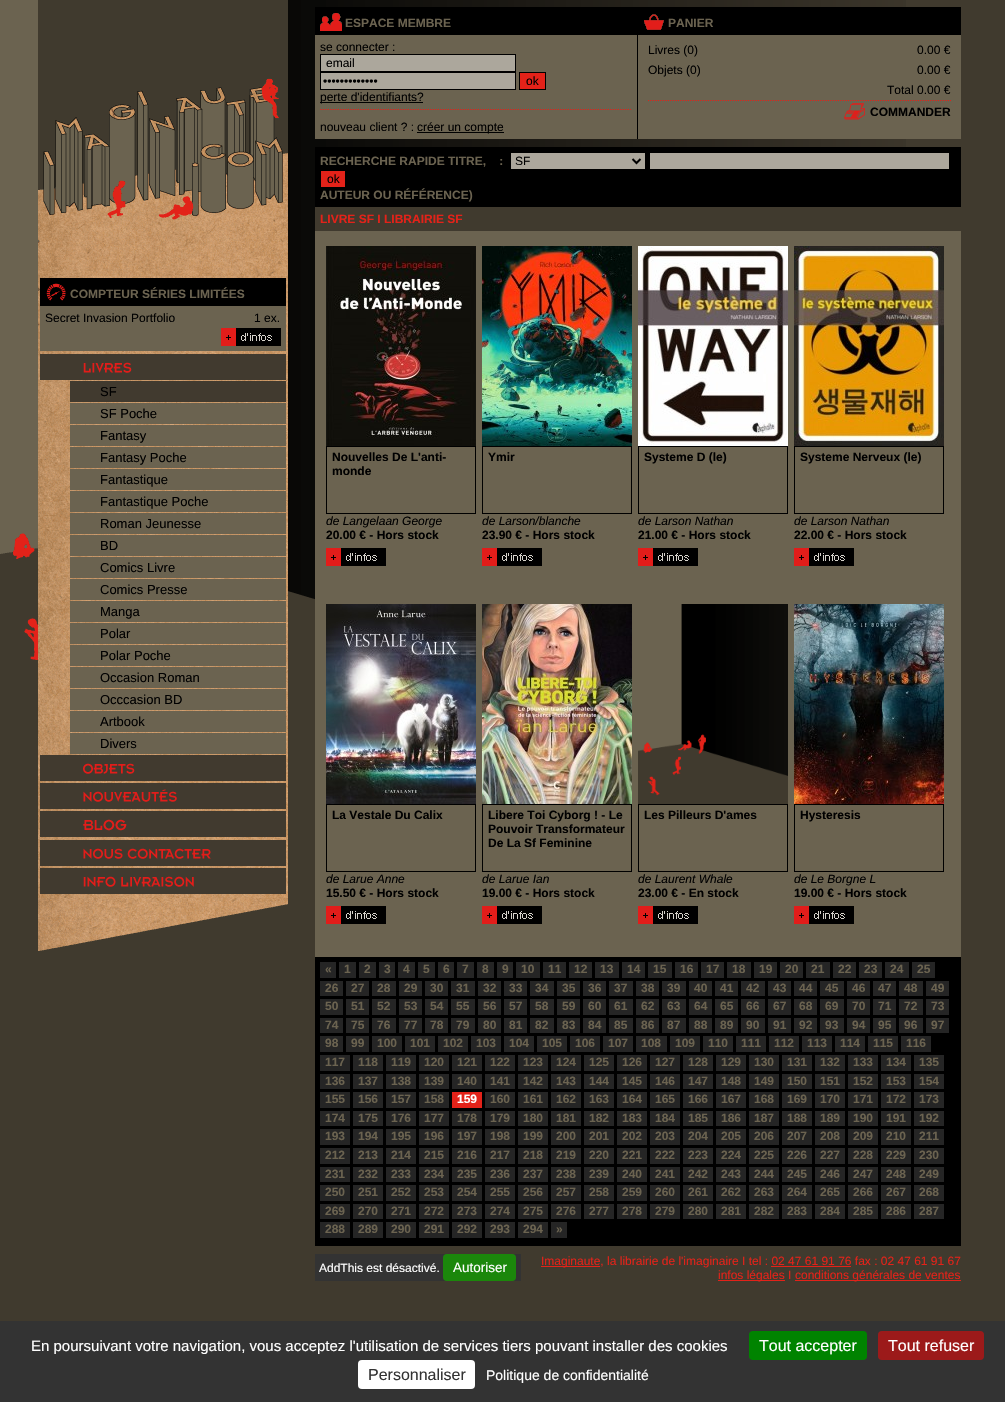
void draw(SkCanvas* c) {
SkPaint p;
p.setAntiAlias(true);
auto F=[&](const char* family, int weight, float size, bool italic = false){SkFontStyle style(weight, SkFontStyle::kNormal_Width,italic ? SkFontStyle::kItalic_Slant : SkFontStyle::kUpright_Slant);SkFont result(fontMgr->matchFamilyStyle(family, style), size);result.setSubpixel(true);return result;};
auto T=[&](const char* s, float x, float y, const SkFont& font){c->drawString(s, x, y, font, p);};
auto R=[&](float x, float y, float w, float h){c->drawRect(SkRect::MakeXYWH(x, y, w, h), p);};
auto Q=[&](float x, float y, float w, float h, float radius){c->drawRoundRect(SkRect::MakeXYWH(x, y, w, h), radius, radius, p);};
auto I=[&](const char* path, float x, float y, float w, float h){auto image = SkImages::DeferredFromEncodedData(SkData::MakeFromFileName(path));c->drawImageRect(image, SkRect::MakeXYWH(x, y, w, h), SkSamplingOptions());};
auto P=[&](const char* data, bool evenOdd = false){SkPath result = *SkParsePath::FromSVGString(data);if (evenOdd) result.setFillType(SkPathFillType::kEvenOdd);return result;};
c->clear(0xff403a2e);
I("1.png",0,0,906,776);
I("2.png",38,0,250,276);
I("3.png",38,276,250,622);
p.setColor(0xff000000);
R(40,278,246,28);
I("4.png",46,283,20,18);
auto f1 = F("Liberation Sans",700,12);
p.setColor(0xff6b6350);
T("COMPTEUR SÉRIES LIMITÉES",70,298,f1);
R(40,306,246,45);
auto f2 = F("Liberation Sans",400,12);
p.setColor(0xff000000);
T("Secret Invasion Portfolio",45,322,f2);
T("1 ex.",254,322,f2);
I("5.png",221,328,60,18);
I("6.png",40,354,246,26);
p.setColor(0xff413a2f);
R(70,381,216,21);
auto f3 = F("Liberation Sans",400,13);
p.setColor(0xff000000);
T("SF",100,396,f3);
p.setColor(0xff6b6350);
R(70,403,216,21);
p.setColor(0xff000000);
T("SF Poche",100,418,f3);
p.setColor(0xff6b6350);
R(70,425,216,21);
p.setColor(0xff000000);
T("Fantasy",100,440,f3);
p.setColor(0xff6b6350);
R(70,447,216,21);
p.setColor(0xff000000);
T("Fantasy Poche",100,462,f3);
p.setColor(0xff6b6350);
R(70,469,216,21);
p.setColor(0xff000000);
T("Fantastique",100,484,f3);
p.setColor(0xff6b6350);
R(70,491,216,21);
p.setColor(0xff000000);
T("Fantastique Poche",100,506,f3);
p.setColor(0xff6b6350);
R(70,513,216,21);
p.setColor(0xff000000);
T("Roman Jeunesse",100,528,f3);
p.setColor(0xff6b6350);
R(70,535,216,21);
p.setColor(0xff000000);
T("BD",100,550,f3);
p.setColor(0xff6b6350);
R(70,557,216,21);
p.setColor(0xff000000);
T("Comics Livre",100,572,f3);
p.setColor(0xff6b6350);
R(70,579,216,21);
p.setColor(0xff000000);
T("Comics Presse",100,594,f3);
p.setColor(0xff6b6350);
R(70,601,216,21);
p.setColor(0xff000000);
T("Manga",100,616,f3);
p.setColor(0xff6b6350);
R(70,623,216,21);
p.setColor(0xff000000);
T("Polar",100,638,f3);
p.setColor(0xff6b6350);
R(70,645,216,21);
p.setColor(0xff000000);
T("Polar Poche",100,660,f3);
p.setColor(0xff6b6350);
R(70,667,216,21);
p.setColor(0xff000000);
T("Occasion Roman",100,682,f3);
p.setColor(0xff6b6350);
R(70,689,216,21);
p.setColor(0xff000000);
T("Occcasion BD",100,704,f3);
p.setColor(0xff6b6350);
R(70,711,216,21);
p.setColor(0xff000000);
T("Artbook",100,726,f3);
p.setColor(0xff6b6350);
R(70,733,216,21);
p.setColor(0xff000000);
T("Divers",100,748,f3);
I("7.png",40,755,246,26);
I("8.png",40,783,246,26);
I("9.png",40,811,246,26);
I("10.png",40,840,246,26);
I("11.png",40,868,246,26);
I("12.png",38,898,250,53);
p.setColor(0xff6b6350);
R(315,35,646,104);
p.setColor(0xff000000);
R(637,7,1,132);
R(315,7,322,28);
I("13.png",320,13,22,18);
p.setColor(0xff6b6350);
T("ESPACE MEMBRE",345,27,f1);
p.setStroke(true);
p.setStrokeWidth(1);
p.setColor(0xffe32219);
p.setPathEffect(SkDashPathEffect::Make({{1,1}}, 0));
c->drawPath(P("M320 109.5h312"),p);
p.setPathEffect(nullptr);
p.setStroke(false);
p.setColor(0xff000000);
T("se connecter :",320,51,f2);
p.setColor(0xffaca79c);
c->drawRect(SkRect::MakeXYWH(320.5,54.5,195,17),p);
p.setStroke(true);
p.setColor(0xff000000);
c->drawRect(SkRect::MakeXYWH(320.5,54.5,195,17),p);
p.setStroke(false);
T("email",326,67,f2);
p.setColor(0xffaca79c);
c->drawRect(SkRect::MakeXYWH(320.5,72.5,195,17),p);
p.setStroke(true);
p.setColor(0xff000000);
c->drawRect(SkRect::MakeXYWH(320.5,72.5,195,17),p);
p.setStroke(false);
T("•••••••••••••",323,85,f2);
p.setColor(0xffe32219);
c->drawRect(SkRect::MakeXYWH(519.5,72.5,26,17),p);
p.setStroke(true);
p.setColor(0xff000000);
c->drawRect(SkRect::MakeXYWH(519.5,72.5,26,17),p);
p.setStroke(false);
T("ok",526,85,f2);
R(320,102,103,1);
T("perte d'identifiants?",320,101,f2);
T("nouveau client ? :",320,131,f2);
R(417,132,87,1);
T("créer un compte",417,131,f2);
R(638,7,323,28);
I("14.png",644,14,20,16);
p.setColor(0xff6b6350);
T("PANIER",668,27,f1);
p.setColor(0xff000000);
T("Livres (0)",648,54,f2);
T("0.00 €",917,54,f2);
T("Objets (0)",648,74,f2);
T("0.00 €",917,74,f2);
T("Total 0.00 €",887,94,f2);
p.setStroke(true);
p.setColor(0xffe32219);
p.setPathEffect(SkDashPathEffect::Make({{1,1}}, 0));
c->drawPath(P("M648 100.5h303"),p);
p.setPathEffect(nullptr);
I("15.png",844,103,21,17);
p.setStroke(false);
p.setColor(0xff000000);
T("COMMANDER",870,116,f1);
R(315,147,646,60);
p.setColor(0xff6b6350);
T("RECHERCHE RAPIDE TITRE,    :",320,165,f1);
p.setColor(0xffaca79c);
R(511,153,134,16);
p.setStroke(true);
p.setStrokeWidth(2);
p.setColor(0xff000000);
c->drawPath(P("M632.5 159l4 4l4-4"),p);
p.setStroke(false);
T("SF",515,165,f2);
p.setColor(0xffaca79c);
R(650,153,299,16);
p.setColor(0xffe32219);
R(321,171,24,16);
p.setColor(0xff000000);
T("ok",327,183,f2);
p.setColor(0xff6b6350);
T("AUTEUR OU RÉFÉRENCE)",320,199,f1);
p.setColor(0xff403a2e);
R(315,207,591,24);
p.setColor(0xffe32219);
T("LIVRE SF I LIBRAIRIE SF",320,223,f1);
p.setColor(0xff6b6350);
R(315,231,646,726);
I("16.png",326,246,150,200);
p.setStroke(true);
p.setStrokeWidth(1);
p.setColor(0xff000000);
c->drawRect(SkRect::MakeXYWH(326.5,446.5,149,67),p);
p.setStroke(false);
T("Nouvelles De L'anti-",332,461,f1);
T("monde",332,475,f1);
auto f4 = F("Liberation Sans",400,12,true);
T("de Langelaan George",326,525,f4);
T("20.00 € - Hors stock",326,539,f1);
I("5.png",326,548,60,18);
I("17.png",482,246,150,200);
p.setStroke(true);
c->drawRect(SkRect::MakeXYWH(482.5,446.5,149,67),p);
p.setStroke(false);
T("Ymir",488,461,f1);
T("de Larson/blanche",482,525,f4);
T("23.90 € - Hors stock",482,539,f1);
I("5.png",482,548,60,18);
I("18.png",638,246,150,200);
p.setStroke(true);
c->drawRect(SkRect::MakeXYWH(638.5,446.5,149,67),p);
p.setStroke(false);
T("Systeme D (le)",644,461,f1);
T("de Larson Nathan",638,525,f4);
T("21.00 € - Hors stock",638,539,f1);
I("5.png",638,548,60,18);
I("19.png",794,246,150,200);
p.setStroke(true);
c->drawRect(SkRect::MakeXYWH(794.5,446.5,149,67),p);
p.setStroke(false);
T("Systeme Nerveux (le)",800,461,f1);
T("de Larson Nathan",794,525,f4);
T("22.00 € - Hors stock",794,539,f1);
I("5.png",794,548,60,18);
I("20.png",326,604,150,200);
p.setStroke(true);
c->drawRect(SkRect::MakeXYWH(326.5,804.5,149,67),p);
p.setStroke(false);
T("La Vestale Du Calix",332,819,f1);
T("de Larue Anne",326,883,f4);
T("15.50 € - Hors stock",326,897,f1);
I("5.png",326,906,60,18);
I("21.png",482,604,150,200);
p.setStroke(true);
c->drawRect(SkRect::MakeXYWH(482.5,804.5,149,67),p);
p.setStroke(false);
T("Libere Toi Cyborg ! - Le",488,819,f1);
T("Pouvoir Transformateur",488,833,f1);
T("De La Sf Feminine",488,847,f1);
T("de Larue Ian",482,883,f4);
T("19.00 € - Hors stock",482,897,f1);
I("5.png",482,906,60,18);
I("22.png",638,604,150,200);
p.setStroke(true);
c->drawRect(SkRect::MakeXYWH(638.5,804.5,149,67),p);
p.setStroke(false);
T("Les Pilleurs D'ames",644,819,f1);
T("de Laurent Whale",638,883,f4);
T("23.00 € - En stock",638,897,f1);
I("5.png",638,906,60,18);
I("23.png",794,604,150,200);
p.setStroke(true);
c->drawRect(SkRect::MakeXYWH(794.5,804.5,149,67),p);
p.setStroke(false);
T("Hysteresis",800,819,f1);
T("de Le Borgne L",794,883,f4);
T("19.00 € - Hors stock",794,897,f1);
I("5.png",794,906,60,18);
R(315,957,646,289);
p.setColor(0xff252525);
R(320,962,16,16);
p.setColor(0xff6b6350);
T("«",325,973,f1);
p.setColor(0xff252525);
R(339,962,17,16);
p.setColor(0xff6b6350);
T("1",344,973,f1);
p.setColor(0xff252525);
R(359,962,17,16);
p.setColor(0xff6b6350);
T("2",364,973,f1);
p.setColor(0xff252525);
R(379,962,16,16);
p.setColor(0xff6b6350);
T("3",384,973,f1);
p.setColor(0xff252525);
R(398,962,17,16);
p.setColor(0xff6b6350);
T("4",403,973,f1);
p.setColor(0xff252525);
R(418,962,17,16);
p.setColor(0xff6b6350);
T("5",423,973,f1);
p.setColor(0xff252525);
R(438,962,16,16);
p.setColor(0xff6b6350);
T("6",443,973,f1);
p.setColor(0xff252525);
R(457,962,17,16);
p.setColor(0xff6b6350);
T("7",462,973,f1);
p.setColor(0xff252525);
R(477,962,17,16);
p.setColor(0xff6b6350);
T("8",482,973,f1);
p.setColor(0xff252525);
R(497,962,16,16);
p.setColor(0xff6b6350);
T("9",502,973,f1);
p.setColor(0xff252525);
R(516,962,24,16);
p.setColor(0xff6b6350);
T("10",521,973,f1);
p.setColor(0xff252525);
R(543,962,23,16);
p.setColor(0xff6b6350);
T("11",548,973,f1);
p.setColor(0xff252525);
R(569,962,23,16);
p.setColor(0xff6b6350);
T("12",574,973,f1);
p.setColor(0xff252525);
R(595,962,24,16);
p.setColor(0xff6b6350);
T("13",600,973,f1);
p.setColor(0xff252525);
R(622,962,23,16);
p.setColor(0xff6b6350);
T("14",627,973,f1);
p.setColor(0xff252525);
R(648,962,24,16);
p.setColor(0xff6b6350);
T("15",653,973,f1);
p.setColor(0xff252525);
R(675,962,23,16);
p.setColor(0xff6b6350);
T("16",680,973,f1);
p.setColor(0xff252525);
R(701,962,23,16);
p.setColor(0xff6b6350);
T("17",706,973,f1);
p.setColor(0xff252525);
R(727,962,24,16);
p.setColor(0xff6b6350);
T("18",732,973,f1);
p.setColor(0xff252525);
R(754,962,23,16);
p.setColor(0xff6b6350);
T("19",759,973,f1);
p.setColor(0xff252525);
R(780,962,23,16);
p.setColor(0xff6b6350);
T("20",785,973,f1);
p.setColor(0xff252525);
R(806,962,24,16);
p.setColor(0xff6b6350);
T("21",811,973,f1);
p.setColor(0xff252525);
R(833,962,23,16);
p.setColor(0xff6b6350);
T("22",838,973,f1);
p.setColor(0xff252525);
R(859,962,23,16);
p.setColor(0xff6b6350);
T("23",864,973,f1);
p.setColor(0xff252525);
R(885,962,24,16);
p.setColor(0xff6b6350);
T("24",890,973,f1);
p.setColor(0xff252525);
R(912,962,23,16);
p.setColor(0xff6b6350);
T("25",917,973,f1);
p.setColor(0xff252525);
R(320,981,23,15);
p.setColor(0xff6b6350);
T("26",325,992,f1);
p.setColor(0xff252525);
R(346,981,23,15);
p.setColor(0xff6b6350);
T("27",351,992,f1);
p.setColor(0xff252525);
R(372,981,24,15);
p.setColor(0xff6b6350);
T("28",377,992,f1);
p.setColor(0xff252525);
R(399,981,23,15);
p.setColor(0xff6b6350);
T("29",404,992,f1);
p.setColor(0xff252525);
R(425,981,23,15);
p.setColor(0xff6b6350);
T("30",430,992,f1);
p.setColor(0xff252525);
R(451,981,24,15);
p.setColor(0xff6b6350);
T("31",456,992,f1);
p.setColor(0xff252525);
R(478,981,23,15);
p.setColor(0xff6b6350);
T("32",483,992,f1);
p.setColor(0xff252525);
R(504,981,23,15);
p.setColor(0xff6b6350);
T("33",509,992,f1);
p.setColor(0xff252525);
R(530,981,24,15);
p.setColor(0xff6b6350);
T("34",535,992,f1);
p.setColor(0xff252525);
R(557,981,23,15);
p.setColor(0xff6b6350);
T("35",562,992,f1);
p.setColor(0xff252525);
R(583,981,23,15);
p.setColor(0xff6b6350);
T("36",588,992,f1);
p.setColor(0xff252525);
R(609,981,24,15);
p.setColor(0xff6b6350);
T("37",614,992,f1);
p.setColor(0xff252525);
R(636,981,23,15);
p.setColor(0xff6b6350);
T("38",641,992,f1);
p.setColor(0xff252525);
R(662,981,24,15);
p.setColor(0xff6b6350);
T("39",667,992,f1);
p.setColor(0xff252525);
R(689,981,23,15);
p.setColor(0xff6b6350);
T("40",694,992,f1);
p.setColor(0xff252525);
R(715,981,23,15);
p.setColor(0xff6b6350);
T("41",720,992,f1);
p.setColor(0xff252525);
R(741,981,24,15);
p.setColor(0xff6b6350);
T("42",746,992,f1);
p.setColor(0xff252525);
R(768,981,23,15);
p.setColor(0xff6b6350);
T("43",773,992,f1);
p.setColor(0xff252525);
R(794,981,23,15);
p.setColor(0xff6b6350);
T("44",799,992,f1);
p.setColor(0xff252525);
R(820,981,24,15);
p.setColor(0xff6b6350);
T("45",825,992,f1);
p.setColor(0xff252525);
R(847,981,23,15);
p.setColor(0xff6b6350);
T("46",852,992,f1);
p.setColor(0xff252525);
R(873,981,23,15);
p.setColor(0xff6b6350);
T("47",878,992,f1);
p.setColor(0xff252525);
R(899,981,24,15);
p.setColor(0xff6b6350);
T("48",904,992,f1);
p.setColor(0xff252525);
R(926,981,23,15);
p.setColor(0xff6b6350);
T("49",931,992,f1);
p.setColor(0xff252525);
R(320,999,23,16);
p.setColor(0xff6b6350);
T("50",325,1010,f1);
p.setColor(0xff252525);
R(346,999,23,16);
p.setColor(0xff6b6350);
T("51",351,1010,f1);
p.setColor(0xff252525);
R(372,999,24,16);
p.setColor(0xff6b6350);
T("52",377,1010,f1);
p.setColor(0xff252525);
R(399,999,23,16);
p.setColor(0xff6b6350);
T("53",404,1010,f1);
p.setColor(0xff252525);
R(425,999,23,16);
p.setColor(0xff6b6350);
T("54",430,1010,f1);
p.setColor(0xff252525);
R(451,999,24,16);
p.setColor(0xff6b6350);
T("55",456,1010,f1);
p.setColor(0xff252525);
R(478,999,23,16);
p.setColor(0xff6b6350);
T("56",483,1010,f1);
p.setColor(0xff252525);
R(504,999,23,16);
p.setColor(0xff6b6350);
T("57",509,1010,f1);
p.setColor(0xff252525);
R(530,999,24,16);
p.setColor(0xff6b6350);
T("58",535,1010,f1);
p.setColor(0xff252525);
R(557,999,23,16);
p.setColor(0xff6b6350);
T("59",562,1010,f1);
p.setColor(0xff252525);
R(583,999,23,16);
p.setColor(0xff6b6350);
T("60",588,1010,f1);
p.setColor(0xff252525);
R(609,999,24,16);
p.setColor(0xff6b6350);
T("61",614,1010,f1);
p.setColor(0xff252525);
R(636,999,23,16);
p.setColor(0xff6b6350);
T("62",641,1010,f1);
p.setColor(0xff252525);
R(662,999,24,16);
p.setColor(0xff6b6350);
T("63",667,1010,f1);
p.setColor(0xff252525);
R(689,999,23,16);
p.setColor(0xff6b6350);
T("64",694,1010,f1);
p.setColor(0xff252525);
R(715,999,23,16);
p.setColor(0xff6b6350);
T("65",720,1010,f1);
p.setColor(0xff252525);
R(741,999,24,16);
p.setColor(0xff6b6350);
T("66",746,1010,f1);
p.setColor(0xff252525);
R(768,999,23,16);
p.setColor(0xff6b6350);
T("67",773,1010,f1);
p.setColor(0xff252525);
R(794,999,23,16);
p.setColor(0xff6b6350);
T("68",799,1010,f1);
p.setColor(0xff252525);
R(820,999,24,16);
p.setColor(0xff6b6350);
T("69",825,1010,f1);
p.setColor(0xff252525);
R(847,999,23,16);
p.setColor(0xff6b6350);
T("70",852,1010,f1);
p.setColor(0xff252525);
R(873,999,23,16);
p.setColor(0xff6b6350);
T("71",878,1010,f1);
p.setColor(0xff252525);
R(899,999,24,16);
p.setColor(0xff6b6350);
T("72",904,1010,f1);
p.setColor(0xff252525);
R(926,999,23,16);
p.setColor(0xff6b6350);
T("73",931,1010,f1);
p.setColor(0xff252525);
R(320,1018,23,15);
p.setColor(0xff6b6350);
T("74",325,1029,f1);
p.setColor(0xff252525);
R(346,1018,23,15);
p.setColor(0xff6b6350);
T("75",351,1029,f1);
p.setColor(0xff252525);
R(372,1018,24,15);
p.setColor(0xff6b6350);
T("76",377,1029,f1);
p.setColor(0xff252525);
R(399,1018,23,15);
p.setColor(0xff6b6350);
T("77",404,1029,f1);
p.setColor(0xff252525);
R(425,1018,23,15);
p.setColor(0xff6b6350);
T("78",430,1029,f1);
p.setColor(0xff252525);
R(451,1018,24,15);
p.setColor(0xff6b6350);
T("79",456,1029,f1);
p.setColor(0xff252525);
R(478,1018,23,15);
p.setColor(0xff6b6350);
T("80",483,1029,f1);
p.setColor(0xff252525);
R(504,1018,23,15);
p.setColor(0xff6b6350);
T("81",509,1029,f1);
p.setColor(0xff252525);
R(530,1018,24,15);
p.setColor(0xff6b6350);
T("82",535,1029,f1);
p.setColor(0xff252525);
R(557,1018,23,15);
p.setColor(0xff6b6350);
T("83",562,1029,f1);
p.setColor(0xff252525);
R(583,1018,23,15);
p.setColor(0xff6b6350);
T("84",588,1029,f1);
p.setColor(0xff252525);
R(609,1018,24,15);
p.setColor(0xff6b6350);
T("85",614,1029,f1);
p.setColor(0xff252525);
R(636,1018,23,15);
p.setColor(0xff6b6350);
T("86",641,1029,f1);
p.setColor(0xff252525);
R(662,1018,24,15);
p.setColor(0xff6b6350);
T("87",667,1029,f1);
p.setColor(0xff252525);
R(689,1018,23,15);
p.setColor(0xff6b6350);
T("88",694,1029,f1);
p.setColor(0xff252525);
R(715,1018,23,15);
p.setColor(0xff6b6350);
T("89",720,1029,f1);
p.setColor(0xff252525);
R(741,1018,24,15);
p.setColor(0xff6b6350);
T("90",746,1029,f1);
p.setColor(0xff252525);
R(768,1018,23,15);
p.setColor(0xff6b6350);
T("91",773,1029,f1);
p.setColor(0xff252525);
R(794,1018,23,15);
p.setColor(0xff6b6350);
T("92",799,1029,f1);
p.setColor(0xff252525);
R(820,1018,24,15);
p.setColor(0xff6b6350);
T("93",825,1029,f1);
p.setColor(0xff252525);
R(847,1018,23,15);
p.setColor(0xff6b6350);
T("94",852,1029,f1);
p.setColor(0xff252525);
R(873,1018,23,15);
p.setColor(0xff6b6350);
T("95",878,1029,f1);
p.setColor(0xff252525);
R(899,1018,24,15);
p.setColor(0xff6b6350);
T("96",904,1029,f1);
p.setColor(0xff252525);
R(926,1018,23,15);
p.setColor(0xff6b6350);
T("97",931,1029,f1);
p.setColor(0xff252525);
R(320,1036,23,16);
p.setColor(0xff6b6350);
T("98",325,1047,f1);
p.setColor(0xff252525);
R(346,1036,23,16);
p.setColor(0xff6b6350);
T("99",351,1047,f1);
p.setColor(0xff252525);
R(372,1036,30,16);
p.setColor(0xff6b6350);
T("100",377,1047,f1);
p.setColor(0xff252525);
R(405,1036,30,16);
p.setColor(0xff6b6350);
T("101",410,1047,f1);
p.setColor(0xff252525);
R(438,1036,30,16);
p.setColor(0xff6b6350);
T("102",443,1047,f1);
p.setColor(0xff252525);
R(471,1036,30,16);
p.setColor(0xff6b6350);
T("103",476,1047,f1);
p.setColor(0xff252525);
R(504,1036,30,16);
p.setColor(0xff6b6350);
T("104",509,1047,f1);
p.setColor(0xff252525);
R(537,1036,30,16);
p.setColor(0xff6b6350);
T("105",542,1047,f1);
p.setColor(0xff252525);
R(570,1036,30,16);
p.setColor(0xff6b6350);
T("106",575,1047,f1);
p.setColor(0xff252525);
R(603,1036,30,16);
p.setColor(0xff6b6350);
T("107",608,1047,f1);
p.setColor(0xff252525);
R(636,1036,31,16);
p.setColor(0xff6b6350);
T("108",641,1047,f1);
p.setColor(0xff252525);
R(670,1036,30,16);
p.setColor(0xff6b6350);
T("109",675,1047,f1);
p.setColor(0xff252525);
R(703,1036,30,16);
p.setColor(0xff6b6350);
T("110",708,1047,f1);
p.setColor(0xff252525);
R(736,1036,30,16);
p.setColor(0xff6b6350);
T("111",741,1047,f1);
p.setColor(0xff252525);
R(769,1036,30,16);
p.setColor(0xff6b6350);
T("112",774,1047,f1);
p.setColor(0xff252525);
R(802,1036,30,16);
p.setColor(0xff6b6350);
T("113",807,1047,f1);
p.setColor(0xff252525);
R(835,1036,30,16);
p.setColor(0xff6b6350);
T("114",840,1047,f1);
p.setColor(0xff252525);
R(868,1036,30,16);
p.setColor(0xff6b6350);
T("115",873,1047,f1);
p.setColor(0xff252525);
R(901,1036,30,16);
p.setColor(0xff6b6350);
T("116",906,1047,f1);
p.setColor(0xff252525);
R(320,1055,30,16);
p.setColor(0xff6b6350);
T("117",325,1066,f1);
p.setColor(0xff252525);
R(353,1055,30,16);
p.setColor(0xff6b6350);
T("118",358,1066,f1);
p.setColor(0xff252525);
R(386,1055,30,16);
p.setColor(0xff6b6350);
T("119",391,1066,f1);
p.setColor(0xff252525);
R(419,1055,30,16);
p.setColor(0xff6b6350);
T("120",424,1066,f1);
p.setColor(0xff252525);
R(452,1055,30,16);
p.setColor(0xff6b6350);
T("121",457,1066,f1);
p.setColor(0xff252525);
R(485,1055,30,16);
p.setColor(0xff6b6350);
T("122",490,1066,f1);
p.setColor(0xff252525);
R(518,1055,30,16);
p.setColor(0xff6b6350);
T("123",523,1066,f1);
p.setColor(0xff252525);
R(551,1055,30,16);
p.setColor(0xff6b6350);
T("124",556,1066,f1);
p.setColor(0xff252525);
R(584,1055,30,16);
p.setColor(0xff6b6350);
T("125",589,1066,f1);
p.setColor(0xff252525);
R(617,1055,30,16);
p.setColor(0xff6b6350);
T("126",622,1066,f1);
p.setColor(0xff252525);
R(650,1055,30,16);
p.setColor(0xff6b6350);
T("127",655,1066,f1);
p.setColor(0xff252525);
R(683,1055,30,16);
p.setColor(0xff6b6350);
T("128",688,1066,f1);
p.setColor(0xff252525);
R(716,1055,30,16);
p.setColor(0xff6b6350);
T("129",721,1066,f1);
p.setColor(0xff252525);
R(749,1055,30,16);
p.setColor(0xff6b6350);
T("130",754,1066,f1);
p.setColor(0xff252525);
R(782,1055,30,16);
p.setColor(0xff6b6350);
T("131",787,1066,f1);
p.setColor(0xff252525);
R(815,1055,30,16);
p.setColor(0xff6b6350);
T("132",820,1066,f1);
p.setColor(0xff252525);
R(848,1055,30,16);
p.setColor(0xff6b6350);
T("133",853,1066,f1);
p.setColor(0xff252525);
R(881,1055,30,16);
p.setColor(0xff6b6350);
T("134",886,1066,f1);
p.setColor(0xff252525);
R(914,1055,30,16);
p.setColor(0xff6b6350);
T("135",919,1066,f1);
p.setColor(0xff252525);
R(320,1074,30,15);
p.setColor(0xff6b6350);
T("136",325,1085,f1);
p.setColor(0xff252525);
R(353,1074,30,15);
p.setColor(0xff6b6350);
T("137",358,1085,f1);
p.setColor(0xff252525);
R(386,1074,30,15);
p.setColor(0xff6b6350);
T("138",391,1085,f1);
p.setColor(0xff252525);
R(419,1074,30,15);
p.setColor(0xff6b6350);
T("139",424,1085,f1);
p.setColor(0xff252525);
R(452,1074,30,15);
p.setColor(0xff6b6350);
T("140",457,1085,f1);
p.setColor(0xff252525);
R(485,1074,30,15);
p.setColor(0xff6b6350);
T("141",490,1085,f1);
p.setColor(0xff252525);
R(518,1074,30,15);
p.setColor(0xff6b6350);
T("142",523,1085,f1);
p.setColor(0xff252525);
R(551,1074,30,15);
p.setColor(0xff6b6350);
T("143",556,1085,f1);
p.setColor(0xff252525);
R(584,1074,30,15);
p.setColor(0xff6b6350);
T("144",589,1085,f1);
p.setColor(0xff252525);
R(617,1074,30,15);
p.setColor(0xff6b6350);
T("145",622,1085,f1);
p.setColor(0xff252525);
R(650,1074,30,15);
p.setColor(0xff6b6350);
T("146",655,1085,f1);
p.setColor(0xff252525);
R(683,1074,30,15);
p.setColor(0xff6b6350);
T("147",688,1085,f1);
p.setColor(0xff252525);
R(716,1074,30,15);
p.setColor(0xff6b6350);
T("148",721,1085,f1);
p.setColor(0xff252525);
R(749,1074,30,15);
p.setColor(0xff6b6350);
T("149",754,1085,f1);
p.setColor(0xff252525);
R(782,1074,30,15);
p.setColor(0xff6b6350);
T("150",787,1085,f1);
p.setColor(0xff252525);
R(815,1074,30,15);
p.setColor(0xff6b6350);
T("151",820,1085,f1);
p.setColor(0xff252525);
R(848,1074,30,15);
p.setColor(0xff6b6350);
T("152",853,1085,f1);
p.setColor(0xff252525);
R(881,1074,30,15);
p.setColor(0xff6b6350);
T("153",886,1085,f1);
p.setColor(0xff252525);
R(914,1074,30,15);
p.setColor(0xff6b6350);
T("154",919,1085,f1);
p.setColor(0xff252525);
R(320,1092,30,16);
p.setColor(0xff6b6350);
T("155",325,1103,f1);
p.setColor(0xff252525);
R(353,1092,30,16);
p.setColor(0xff6b6350);
T("156",358,1103,f1);
p.setColor(0xff252525);
R(386,1092,30,16);
p.setColor(0xff6b6350);
T("157",391,1103,f1);
p.setColor(0xff252525);
R(419,1092,30,16);
p.setColor(0xff6b6350);
T("158",424,1103,f1);
p.setColor(0xffe32219);
R(452,1092,30,16);
p.setColor(0xffffffff);
T("159",457,1103,f1);
p.setColor(0xff252525);
R(485,1092,30,16);
p.setColor(0xff6b6350);
T("160",490,1103,f1);
p.setColor(0xff252525);
R(518,1092,30,16);
p.setColor(0xff6b6350);
T("161",523,1103,f1);
p.setColor(0xff252525);
R(551,1092,30,16);
p.setColor(0xff6b6350);
T("162",556,1103,f1);
p.setColor(0xff252525);
R(584,1092,30,16);
p.setColor(0xff6b6350);
T("163",589,1103,f1);
p.setColor(0xff252525);
R(617,1092,30,16);
p.setColor(0xff6b6350);
T("164",622,1103,f1);
p.setColor(0xff252525);
R(650,1092,30,16);
p.setColor(0xff6b6350);
T("165",655,1103,f1);
p.setColor(0xff252525);
R(683,1092,30,16);
p.setColor(0xff6b6350);
T("166",688,1103,f1);
p.setColor(0xff252525);
R(716,1092,30,16);
p.setColor(0xff6b6350);
T("167",721,1103,f1);
p.setColor(0xff252525);
R(749,1092,30,16);
p.setColor(0xff6b6350);
T("168",754,1103,f1);
p.setColor(0xff252525);
R(782,1092,30,16);
p.setColor(0xff6b6350);
T("169",787,1103,f1);
p.setColor(0xff252525);
R(815,1092,30,16);
p.setColor(0xff6b6350);
T("170",820,1103,f1);
p.setColor(0xff252525);
R(848,1092,30,16);
p.setColor(0xff6b6350);
T("171",853,1103,f1);
p.setColor(0xff252525);
R(881,1092,30,16);
p.setColor(0xff6b6350);
T("172",886,1103,f1);
p.setColor(0xff252525);
R(914,1092,30,16);
p.setColor(0xff6b6350);
T("173",919,1103,f1);
p.setColor(0xff252525);
R(320,1111,30,15);
p.setColor(0xff6b6350);
T("174",325,1122,f1);
p.setColor(0xff252525);
R(353,1111,30,15);
p.setColor(0xff6b6350);
T("175",358,1122,f1);
p.setColor(0xff252525);
R(386,1111,30,15);
p.setColor(0xff6b6350);
T("176",391,1122,f1);
p.setColor(0xff252525);
R(419,1111,30,15);
p.setColor(0xff6b6350);
T("177",424,1122,f1);
p.setColor(0xff252525);
R(452,1111,30,15);
p.setColor(0xff6b6350);
T("178",457,1122,f1);
p.setColor(0xff252525);
R(485,1111,30,15);
p.setColor(0xff6b6350);
T("179",490,1122,f1);
p.setColor(0xff252525);
R(518,1111,30,15);
p.setColor(0xff6b6350);
T("180",523,1122,f1);
p.setColor(0xff252525);
R(551,1111,30,15);
p.setColor(0xff6b6350);
T("181",556,1122,f1);
p.setColor(0xff252525);
R(584,1111,30,15);
p.setColor(0xff6b6350);
T("182",589,1122,f1);
p.setColor(0xff252525);
R(617,1111,30,15);
p.setColor(0xff6b6350);
T("183",622,1122,f1);
p.setColor(0xff252525);
R(650,1111,30,15);
p.setColor(0xff6b6350);
T("184",655,1122,f1);
p.setColor(0xff252525);
R(683,1111,30,15);
p.setColor(0xff6b6350);
T("185",688,1122,f1);
p.setColor(0xff252525);
R(716,1111,30,15);
p.setColor(0xff6b6350);
T("186",721,1122,f1);
p.setColor(0xff252525);
R(749,1111,30,15);
p.setColor(0xff6b6350);
T("187",754,1122,f1);
p.setColor(0xff252525);
R(782,1111,30,15);
p.setColor(0xff6b6350);
T("188",787,1122,f1);
p.setColor(0xff252525);
R(815,1111,30,15);
p.setColor(0xff6b6350);
T("189",820,1122,f1);
p.setColor(0xff252525);
R(848,1111,30,15);
p.setColor(0xff6b6350);
T("190",853,1122,f1);
p.setColor(0xff252525);
R(881,1111,30,15);
p.setColor(0xff6b6350);
T("191",886,1122,f1);
p.setColor(0xff252525);
R(914,1111,30,15);
p.setColor(0xff6b6350);
T("192",919,1122,f1);
p.setColor(0xff252525);
R(320,1129,30,16);
p.setColor(0xff6b6350);
T("193",325,1140,f1);
p.setColor(0xff252525);
R(353,1129,30,16);
p.setColor(0xff6b6350);
T("194",358,1140,f1);
p.setColor(0xff252525);
R(386,1129,30,16);
p.setColor(0xff6b6350);
T("195",391,1140,f1);
p.setColor(0xff252525);
R(419,1129,30,16);
p.setColor(0xff6b6350);
T("196",424,1140,f1);
p.setColor(0xff252525);
R(452,1129,30,16);
p.setColor(0xff6b6350);
T("197",457,1140,f1);
p.setColor(0xff252525);
R(485,1129,30,16);
p.setColor(0xff6b6350);
T("198",490,1140,f1);
p.setColor(0xff252525);
R(518,1129,30,16);
p.setColor(0xff6b6350);
T("199",523,1140,f1);
p.setColor(0xff252525);
R(551,1129,30,16);
p.setColor(0xff6b6350);
T("200",556,1140,f1);
p.setColor(0xff252525);
R(584,1129,30,16);
p.setColor(0xff6b6350);
T("201",589,1140,f1);
p.setColor(0xff252525);
R(617,1129,30,16);
p.setColor(0xff6b6350);
T("202",622,1140,f1);
p.setColor(0xff252525);
R(650,1129,30,16);
p.setColor(0xff6b6350);
T("203",655,1140,f1);
p.setColor(0xff252525);
R(683,1129,30,16);
p.setColor(0xff6b6350);
T("204",688,1140,f1);
p.setColor(0xff252525);
R(716,1129,30,16);
p.setColor(0xff6b6350);
T("205",721,1140,f1);
p.setColor(0xff252525);
R(749,1129,30,16);
p.setColor(0xff6b6350);
T("206",754,1140,f1);
p.setColor(0xff252525);
R(782,1129,30,16);
p.setColor(0xff6b6350);
T("207",787,1140,f1);
p.setColor(0xff252525);
R(815,1129,30,16);
p.setColor(0xff6b6350);
T("208",820,1140,f1);
p.setColor(0xff252525);
R(848,1129,30,16);
p.setColor(0xff6b6350);
T("209",853,1140,f1);
p.setColor(0xff252525);
R(881,1129,30,16);
p.setColor(0xff6b6350);
T("210",886,1140,f1);
p.setColor(0xff252525);
R(914,1129,30,16);
p.setColor(0xff6b6350);
T("211",919,1140,f1);
p.setColor(0xff252525);
R(320,1148,30,16);
p.setColor(0xff6b6350);
T("212",325,1159,f1);
p.setColor(0xff252525);
R(353,1148,30,16);
p.setColor(0xff6b6350);
T("213",358,1159,f1);
p.setColor(0xff252525);
R(386,1148,30,16);
p.setColor(0xff6b6350);
T("214",391,1159,f1);
p.setColor(0xff252525);
R(419,1148,30,16);
p.setColor(0xff6b6350);
T("215",424,1159,f1);
p.setColor(0xff252525);
R(452,1148,30,16);
p.setColor(0xff6b6350);
T("216",457,1159,f1);
p.setColor(0xff252525);
R(485,1148,30,16);
p.setColor(0xff6b6350);
T("217",490,1159,f1);
p.setColor(0xff252525);
R(518,1148,30,16);
p.setColor(0xff6b6350);
T("218",523,1159,f1);
p.setColor(0xff252525);
R(551,1148,30,16);
p.setColor(0xff6b6350);
T("219",556,1159,f1);
p.setColor(0xff252525);
R(584,1148,30,16);
p.setColor(0xff6b6350);
T("220",589,1159,f1);
p.setColor(0xff252525);
R(617,1148,30,16);
p.setColor(0xff6b6350);
T("221",622,1159,f1);
p.setColor(0xff252525);
R(650,1148,30,16);
p.setColor(0xff6b6350);
T("222",655,1159,f1);
p.setColor(0xff252525);
R(683,1148,30,16);
p.setColor(0xff6b6350);
T("223",688,1159,f1);
p.setColor(0xff252525);
R(716,1148,30,16);
p.setColor(0xff6b6350);
T("224",721,1159,f1);
p.setColor(0xff252525);
R(749,1148,30,16);
p.setColor(0xff6b6350);
T("225",754,1159,f1);
p.setColor(0xff252525);
R(782,1148,30,16);
p.setColor(0xff6b6350);
T("226",787,1159,f1);
p.setColor(0xff252525);
R(815,1148,30,16);
p.setColor(0xff6b6350);
T("227",820,1159,f1);
p.setColor(0xff252525);
R(848,1148,30,16);
p.setColor(0xff6b6350);
T("228",853,1159,f1);
p.setColor(0xff252525);
R(881,1148,30,16);
p.setColor(0xff6b6350);
T("229",886,1159,f1);
p.setColor(0xff252525);
R(914,1148,30,16);
p.setColor(0xff6b6350);
T("230",919,1159,f1);
p.setColor(0xff252525);
R(320,1167,30,15);
p.setColor(0xff6b6350);
T("231",325,1178,f1);
p.setColor(0xff252525);
R(353,1167,30,15);
p.setColor(0xff6b6350);
T("232",358,1178,f1);
p.setColor(0xff252525);
R(386,1167,30,15);
p.setColor(0xff6b6350);
T("233",391,1178,f1);
p.setColor(0xff252525);
R(419,1167,30,15);
p.setColor(0xff6b6350);
T("234",424,1178,f1);
p.setColor(0xff252525);
R(452,1167,30,15);
p.setColor(0xff6b6350);
T("235",457,1178,f1);
p.setColor(0xff252525);
R(485,1167,30,15);
p.setColor(0xff6b6350);
T("236",490,1178,f1);
p.setColor(0xff252525);
R(518,1167,30,15);
p.setColor(0xff6b6350);
T("237",523,1178,f1);
p.setColor(0xff252525);
R(551,1167,30,15);
p.setColor(0xff6b6350);
T("238",556,1178,f1);
p.setColor(0xff252525);
R(584,1167,30,15);
p.setColor(0xff6b6350);
T("239",589,1178,f1);
p.setColor(0xff252525);
R(617,1167,30,15);
p.setColor(0xff6b6350);
T("240",622,1178,f1);
p.setColor(0xff252525);
R(650,1167,30,15);
p.setColor(0xff6b6350);
T("241",655,1178,f1);
p.setColor(0xff252525);
R(683,1167,30,15);
p.setColor(0xff6b6350);
T("242",688,1178,f1);
p.setColor(0xff252525);
R(716,1167,30,15);
p.setColor(0xff6b6350);
T("243",721,1178,f1);
p.setColor(0xff252525);
R(749,1167,30,15);
p.setColor(0xff6b6350);
T("244",754,1178,f1);
p.setColor(0xff252525);
R(782,1167,30,15);
p.setColor(0xff6b6350);
T("245",787,1178,f1);
p.setColor(0xff252525);
R(815,1167,30,15);
p.setColor(0xff6b6350);
T("246",820,1178,f1);
p.setColor(0xff252525);
R(848,1167,30,15);
p.setColor(0xff6b6350);
T("247",853,1178,f1);
p.setColor(0xff252525);
R(881,1167,30,15);
p.setColor(0xff6b6350);
T("248",886,1178,f1);
p.setColor(0xff252525);
R(914,1167,30,15);
p.setColor(0xff6b6350);
T("249",919,1178,f1);
p.setColor(0xff252525);
R(320,1185,30,16);
p.setColor(0xff6b6350);
T("250",325,1196,f1);
p.setColor(0xff252525);
R(353,1185,30,16);
p.setColor(0xff6b6350);
T("251",358,1196,f1);
p.setColor(0xff252525);
R(386,1185,30,16);
p.setColor(0xff6b6350);
T("252",391,1196,f1);
p.setColor(0xff252525);
R(419,1185,30,16);
p.setColor(0xff6b6350);
T("253",424,1196,f1);
p.setColor(0xff252525);
R(452,1185,30,16);
p.setColor(0xff6b6350);
T("254",457,1196,f1);
p.setColor(0xff252525);
R(485,1185,30,16);
p.setColor(0xff6b6350);
T("255",490,1196,f1);
p.setColor(0xff252525);
R(518,1185,30,16);
p.setColor(0xff6b6350);
T("256",523,1196,f1);
p.setColor(0xff252525);
R(551,1185,30,16);
p.setColor(0xff6b6350);
T("257",556,1196,f1);
p.setColor(0xff252525);
R(584,1185,30,16);
p.setColor(0xff6b6350);
T("258",589,1196,f1);
p.setColor(0xff252525);
R(617,1185,30,16);
p.setColor(0xff6b6350);
T("259",622,1196,f1);
p.setColor(0xff252525);
R(650,1185,30,16);
p.setColor(0xff6b6350);
T("260",655,1196,f1);
p.setColor(0xff252525);
R(683,1185,30,16);
p.setColor(0xff6b6350);
T("261",688,1196,f1);
p.setColor(0xff252525);
R(716,1185,30,16);
p.setColor(0xff6b6350);
T("262",721,1196,f1);
p.setColor(0xff252525);
R(749,1185,30,16);
p.setColor(0xff6b6350);
T("263",754,1196,f1);
p.setColor(0xff252525);
R(782,1185,30,16);
p.setColor(0xff6b6350);
T("264",787,1196,f1);
p.setColor(0xff252525);
R(815,1185,30,16);
p.setColor(0xff6b6350);
T("265",820,1196,f1);
p.setColor(0xff252525);
R(848,1185,30,16);
p.setColor(0xff6b6350);
T("266",853,1196,f1);
p.setColor(0xff252525);
R(881,1185,30,16);
p.setColor(0xff6b6350);
T("267",886,1196,f1);
p.setColor(0xff252525);
R(914,1185,30,16);
p.setColor(0xff6b6350);
T("268",919,1196,f1);
p.setColor(0xff252525);
R(320,1204,30,15);
p.setColor(0xff6b6350);
T("269",325,1215,f1);
p.setColor(0xff252525);
R(353,1204,30,15);
p.setColor(0xff6b6350);
T("270",358,1215,f1);
p.setColor(0xff252525);
R(386,1204,30,15);
p.setColor(0xff6b6350);
T("271",391,1215,f1);
p.setColor(0xff252525);
R(419,1204,30,15);
p.setColor(0xff6b6350);
T("272",424,1215,f1);
p.setColor(0xff252525);
R(452,1204,30,15);
p.setColor(0xff6b6350);
T("273",457,1215,f1);
p.setColor(0xff252525);
R(485,1204,30,15);
p.setColor(0xff6b6350);
T("274",490,1215,f1);
p.setColor(0xff252525);
R(518,1204,30,15);
p.setColor(0xff6b6350);
T("275",523,1215,f1);
p.setColor(0xff252525);
R(551,1204,30,15);
p.setColor(0xff6b6350);
T("276",556,1215,f1);
p.setColor(0xff252525);
R(584,1204,30,15);
p.setColor(0xff6b6350);
T("277",589,1215,f1);
p.setColor(0xff252525);
R(617,1204,30,15);
p.setColor(0xff6b6350);
T("278",622,1215,f1);
p.setColor(0xff252525);
R(650,1204,30,15);
p.setColor(0xff6b6350);
T("279",655,1215,f1);
p.setColor(0xff252525);
R(683,1204,30,15);
p.setColor(0xff6b6350);
T("280",688,1215,f1);
p.setColor(0xff252525);
R(716,1204,30,15);
p.setColor(0xff6b6350);
T("281",721,1215,f1);
p.setColor(0xff252525);
R(749,1204,30,15);
p.setColor(0xff6b6350);
T("282",754,1215,f1);
p.setColor(0xff252525);
R(782,1204,30,15);
p.setColor(0xff6b6350);
T("283",787,1215,f1);
p.setColor(0xff252525);
R(815,1204,30,15);
p.setColor(0xff6b6350);
T("284",820,1215,f1);
p.setColor(0xff252525);
R(848,1204,30,15);
p.setColor(0xff6b6350);
T("285",853,1215,f1);
p.setColor(0xff252525);
R(881,1204,30,15);
p.setColor(0xff6b6350);
T("286",886,1215,f1);
p.setColor(0xff252525);
R(914,1204,30,15);
p.setColor(0xff6b6350);
T("287",919,1215,f1);
p.setColor(0xff252525);
R(320,1222,30,16);
p.setColor(0xff6b6350);
T("288",325,1233,f1);
p.setColor(0xff252525);
R(353,1222,30,16);
p.setColor(0xff6b6350);
T("289",358,1233,f1);
p.setColor(0xff252525);
R(386,1222,30,16);
p.setColor(0xff6b6350);
T("290",391,1233,f1);
p.setColor(0xff252525);
R(419,1222,30,16);
p.setColor(0xff6b6350);
T("291",424,1233,f1);
p.setColor(0xff252525);
R(452,1222,30,16);
p.setColor(0xff6b6350);
T("292",457,1233,f1);
p.setColor(0xff252525);
R(485,1222,30,16);
p.setColor(0xff6b6350);
T("293",490,1233,f1);
p.setColor(0xff252525);
R(518,1222,30,16);
p.setColor(0xff6b6350);
T("294",523,1233,f1);
p.setColor(0xff252525);
R(551,1222,16,16);
p.setColor(0xff6b6350);
T("»",556,1233,f1);
p.setColor(0xff333333);
R(315,1254,206,27);
p.setColor(0xffffffff);
T("AddThis est désactivé.",319,1272,f2);
p.setColor(0xff1b870b);
Q(443,1254,73,27,4);
auto f5 = F("Liberation Sans",400,13.5);
p.setColor(0xffffffff);
T("Autoriser",453,1272,f5);
p.setColor(0xffe32219);
R(541,1266,59,1);
T("Imaginaute, la librairie de l'imaginaire I tel : 02 47 61 91 76 fax : 02 47 61 91 67",541,1265,f2);
R(771,1266,80,1);
R(718,1280,67,1);
T("infos légales I",718,1279,f2);
R(795,1280,166,1);
T("conditions générales de ventes",795,1279,f2);
p.setColor(0xff333333);
R(0,1321,1005,81);
c->save();
c->clipRect(SkRect::MakeXYWH(21,1337,717,17));
auto f6 = F("Liberation Sans",400,15);
p.setColor(0xffffffff);
T("En poursuivant votre navigation, vous acceptez l'utilisation de services tiers pouvant installer des cookies",31,1351,f6);
c->restore();
p.setColor(0xff008300);
Q(749,1331,118,29,4);
auto f7 = F("Liberation Sans",400,16);
p.setColor(0xffffffff);
T("Tout accepter",759,1351,f7);
p.setColor(0xff9c1a1a);
Q(878,1331,106,29,4);
p.setColor(0xffffffff);
T("Tout refuser",888,1351,f7);
Q(358,1360,117,29,4);
p.setColor(0xff333333);
T("Personnaliser",368,1380,f7);
auto f8 = F("Liberation Sans",400,14);
p.setColor(0xffffffff);
T("Politique de confidentialité",486,1380,f8);
}
